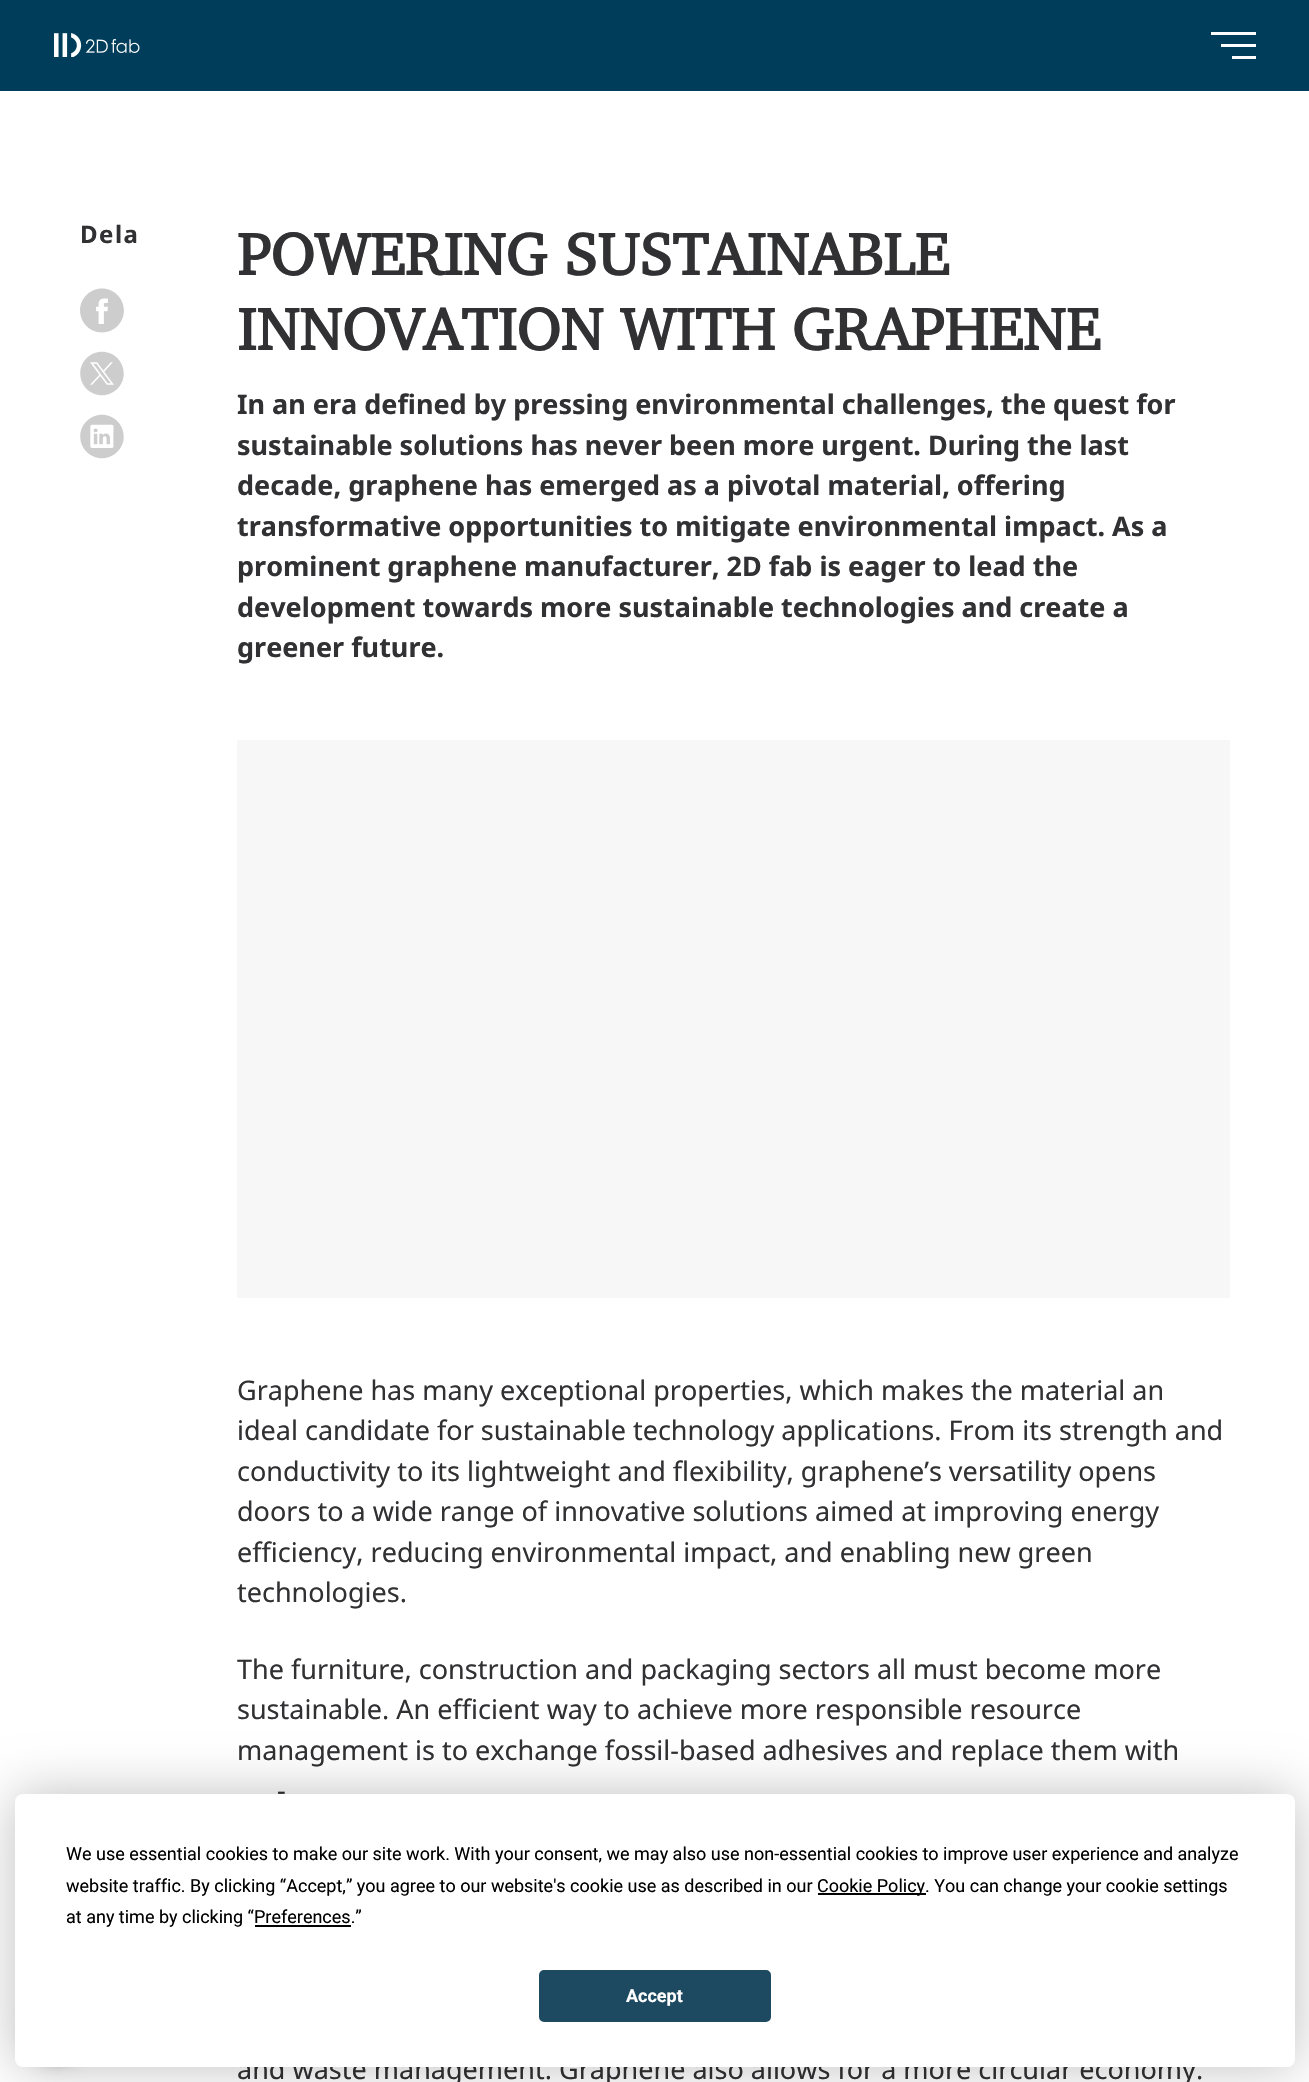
void draw(SkCanvas* c) {
SkPaint p;
p.setAntiAlias(true);
auto F=[&](const char* family, int weight, float size, bool italic = false){SkFontStyle style(weight, SkFontStyle::kNormal_Width,italic ? SkFontStyle::kItalic_Slant : SkFontStyle::kUpright_Slant);SkFont result(fontMgr->matchFamilyStyle(family, style), size);result.setSubpixel(true);return result;};
auto T=[&](const char* s, float x, float y, const SkFont& font){c->drawString(s, x, y, font, p);};
auto L=[&](const char* s, float x, float y, const SkFont& font, const SkPaint& ink, float letter, float word){std::vector<SkGlyphID> glyphs(font.countText(s, strlen(s), SkTextEncoding::kUTF8));std::vector<float> xs(glyphs.size());font.textToGlyphs(s, strlen(s), SkTextEncoding::kUTF8, glyphs);font.getXPos(glyphs, xs, x);float extra = 0;for (size_t i = 0; i < glyphs.size(); i++) {xs[i] += extra;extra += letter + word * (glyphs[i] == font.unicharToGlyph(' '));}c->drawTextBlob(SkTextBlob::MakeFromPosHGlyphs(glyphs, xs, y, font), 0, 0, ink);};
auto R=[&](float x, float y, float w, float h){c->drawRect(SkRect::MakeXYWH(x, y, w, h), p);};
auto Q=[&](float x, float y, float w, float h, float radius){c->drawRoundRect(SkRect::MakeXYWH(x, y, w, h), radius, radius, p);};
auto I=[&](const char* path, float x, float y, float w, float h){auto image = SkImages::DeferredFromEncodedData(SkData::MakeFromFileName(path));c->drawImageRect(image, SkRect::MakeXYWH(x, y, w, h), SkSamplingOptions());};
c->clear(0xffffffff);
p.setColor(0xff003d5b);
R(0,0,1309,91);
I("1.png",54,33,86,24);
p.setColor(0xffffffff);
R(1211,32,45,3);
R(1221,44,35,3);
R(1232,56,24,3);
auto f1 = F("Noto Sans",700,24);
p.setColor(0xff313133);
L("Dela",80,243,f1,p,1.5,0);
I("2.png",80,288,44,45);
I("3.png",80,351,44,45);
I("4.png",80,414,44,45);
auto f2 = F("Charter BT",700,60);
T("POWERING SUSTAINABLE",237,275,f2);
T("INNOVATION WITH GRAPHENE",237,350,f2);
auto f3 = F("Noto Sans",700,27);
T("In an era defined by pressing environmental challenges, the quest for",237,414,f3);
T("sustainable solutions has never been more urgent. During the last",237,455,f3);
T("decade, graphene has emerged as a pivotal material, offering",237,495,f3);
T("transformative opportunities to mitigate environmental impact. As a",237,536,f3);
T("prominent graphene manufacturer, 2D fab is eager to lead the",237,576,f3);
T("development towards more sustainable technologies and create a",237,617,f3);
T("greener future.",237,657,f3);
p.setColor(0xfff7f7f7);
R(237,740,993,558);
auto f4 = F("Noto Sans",400,27);
p.setColor(0xff313133);
T("Graphene has many exceptional properties, which makes the material an",237,1400,f4);
T("ideal candidate for sustainable technology applications. From its strength and",237,1440,f4);
T("conductivity to its lightweight and flexibility, graphene’s versatility opens",237,1481,f4);
T("doors to a wide range of innovative solutions aimed at improving energy",237,1521,f4);
T("efficiency, reducing environmental impact, and enabling new green",237,1562,f4);
T("technologies.",237,1602,f4);
T("The furniture, construction and packaging sectors all must become more",237,1679,f4);
T("sustainable. An efficient way to achieve more responsible resource",237,1719,f4);
T("management is to exchange fossil-based adhesives and replace them with",237,1760,f4);
T("-",277,1800,f4);
T("and waste management. Graphene also allows for a more circular economy.",237,2079,f4);
p.setColor(0x40000000);
p.setMaskFilter(SkMaskFilter::MakeBlur(kNormal_SkBlurStyle, 26));
c->drawRoundRect(SkRect::MakeXYWH(15,1794,1280,273),8,8,p);
p.setMaskFilter(nullptr);
p.setColor(0x4d000000);
p.setMaskFilter(SkMaskFilter::MakeBlur(kNormal_SkBlurStyle, 7.5));
c->drawRoundRect(SkRect::MakeXYWH(26,2003,60,60),30,30,p);
p.setMaskFilter(nullptr);
p.setColor(0xffffffff);
Q(15,1794,1280,273,8);
auto f5 = F("Roboto",400,18);
p.setColor(0xff000000);
T("We use essential cookies to make our site work. With your consent, we may also use non-essential cookies to improve user experience and analyze",66,1860,f5);
T("website traffic. By clicking “Accept,” you agree to our website's cookie use as described in our",66,1892,f5);
R(818,1893,108,2);
T("Cookie Policy. You can change your cookie settings",817,1892,f5);
T("at any time by clicking “Preferences.”",66,1923,f5);
R(255,1925,96,2);
p.setColor(0xff1d4a61);
c->drawRoundRect(SkRect::MakeXYWH(540,1971,230,50),4,4,p);
p.setStroke(true);
p.setStrokeWidth(2);
c->drawRoundRect(SkRect::MakeXYWH(540,1971,230,50),4,4,p);
auto f6 = F("Roboto",700,18);
p.setStroke(false);
p.setColor(0xffffffff);
T("Accept",626,2002,f6);
}
